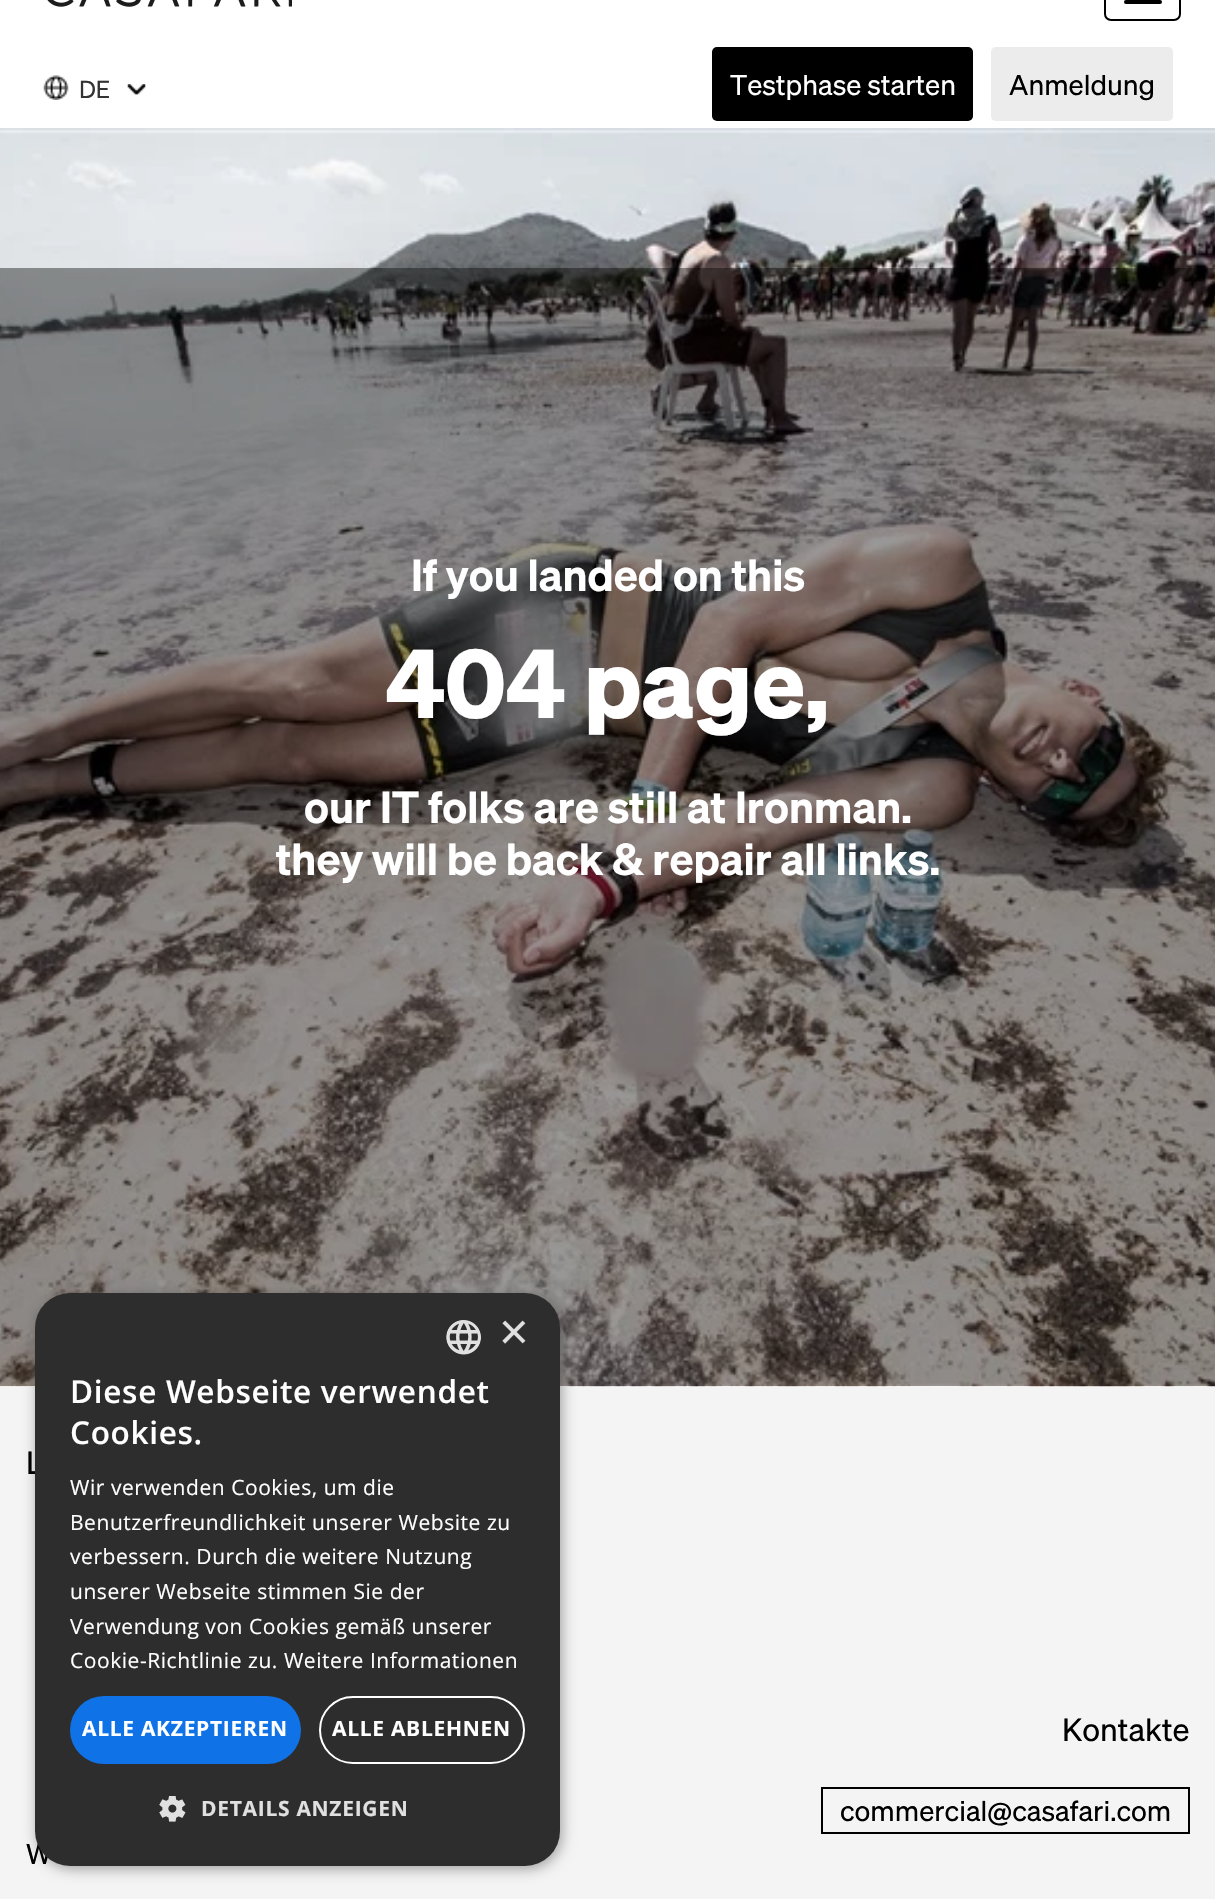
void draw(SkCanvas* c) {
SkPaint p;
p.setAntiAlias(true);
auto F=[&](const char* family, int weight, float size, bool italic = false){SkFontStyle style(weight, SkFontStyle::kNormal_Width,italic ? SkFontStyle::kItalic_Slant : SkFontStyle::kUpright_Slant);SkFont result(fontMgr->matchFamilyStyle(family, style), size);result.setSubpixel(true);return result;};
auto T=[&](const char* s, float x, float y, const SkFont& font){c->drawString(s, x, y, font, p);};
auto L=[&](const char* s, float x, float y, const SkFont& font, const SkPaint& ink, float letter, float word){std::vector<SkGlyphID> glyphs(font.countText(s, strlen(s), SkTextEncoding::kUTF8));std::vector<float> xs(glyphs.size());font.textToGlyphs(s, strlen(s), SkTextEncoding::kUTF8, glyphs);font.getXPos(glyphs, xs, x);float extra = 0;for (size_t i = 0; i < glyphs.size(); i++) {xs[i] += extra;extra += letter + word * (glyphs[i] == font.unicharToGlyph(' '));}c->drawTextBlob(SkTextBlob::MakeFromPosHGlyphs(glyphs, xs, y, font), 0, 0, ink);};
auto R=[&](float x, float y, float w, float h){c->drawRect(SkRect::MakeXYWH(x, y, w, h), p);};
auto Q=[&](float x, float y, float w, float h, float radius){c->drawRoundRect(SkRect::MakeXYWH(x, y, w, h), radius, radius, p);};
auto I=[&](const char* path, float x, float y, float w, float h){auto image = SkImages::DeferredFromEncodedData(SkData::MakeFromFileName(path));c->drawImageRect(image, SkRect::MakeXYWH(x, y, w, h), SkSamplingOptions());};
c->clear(0xffffffff);
I("1.png",47,0,245,7);
p.setStroke(true);
p.setStrokeWidth(2);
p.setColor(0xff000000);
c->drawRoundRect(SkRect::MakeXYWH(1105,-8,75,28),6,6,p);
p.setStroke(false);
Q(1124,0,38,4,2);
I("2.png",43,75,26,25);
auto f1 = F("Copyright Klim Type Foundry",400,24);
p.setColor(0xff333333);
T("DE",79,98,f1);
I("3.png",127,84,19,11);
p.setColor(0xff000000);
Q(712,47,261,74,5);
auto f2 = F("Copyright Klim Type Foundry",400,28);
p.setColor(0xffffffff);
T("Testphase starten",730,95,f2);
p.setColor(0xffececec);
Q(991,47,182,74,5);
p.setColor(0xff000000);
T("Anmeldung",1009,95,f2);
p.setColor(0xfff4f4f4);
R(0,1386,1215,513);
I("4.png",0,128,1215,1259);
p.setColor(0x66000000);
R(0,268,1215,962);
auto f3 = F("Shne",600,43.75);
p.setColor(0xffffffff);
T("If you landed on this",411,591,f3);
auto f4 = F("Copyright Klim Type Foundry",700,95);
T("404 page,",386,718,f4);
T("our IT folks are still at Ironman.",304,823,f3);
T("they will be back & repair all links.",276,875,f3);
p.setColor(0x66000000);
R(0,1230,1215,156);
auto f5 = F("Copyright Klim Type Foundry",400,31.5);
p.setColor(0xff000000);
T("L",26,1474,f5);
T("Kontakte",1062,1741,f5);
p.setStroke(true);
c->drawRect(SkRect::MakeXYWH(822,1788,367,45),p);
p.setStroke(false);
T("commercial@casafari.com",840,1821,f2);
T("W",26,1864,f2);
p.setColor(0x59000000);
p.setMaskFilter(SkMaskFilter::MakeBlur(kNormal_SkBlurStyle, 7));
c->drawRoundRect(SkRect::MakeXYWH(37,1297,525,572),35,35,p);
p.setMaskFilter(nullptr);
p.setColor(0xff2d2d2d);
Q(35,1293,525,573,35);
I("5.png",446,1320,35,35);
auto f6 = F("Liberation Sans",400,51);
p.setColor(0xffe0e0e0);
T("×",499,1349,f6);
auto f7 = F("Open Sans",600,31.5);
p.setColor(0xffffffff);
L("Diese Webseite verwendet",70,1403,f7,p,.7,0);
L("Cookies.",70,1444,f7,p,.7,0);
auto f8 = F("Open Sans",400,21);
L("Wir verwenden Cookies, um die",70,1495,f8,p,.55,0);
L("Benutzerfreundlichkeit unserer Website zu",70,1530,f8,p,.55,0);
L("verbessern. Durch die weitere Nutzung",70,1564,f8,p,.55,0);
L("unserer Webseite stimmen Sie der",70,1599,f8,p,.55,0);
L("Verwendung von Cookies gemäß unserer",70,1634,f8,p,.55,0);
L("Cookie-Richtlinie zu. Weitere Informationen",70,1668,f8,p,.55,0);
p.setColor(0xff0f72e6);
Q(70,1696,231,68,34);
auto f9 = F("Open Sans",700,21);
p.setColor(0xffffffff);
L("ALLE AKZEPTIEREN",82,1736,f9,p,.7,0);
p.setStroke(true);
c->drawRoundRect(SkRect::MakeXYWH(320,1697,204,66),33,33,p);
p.setStroke(false);
L("ALLE ABLEHNEN",332,1736,f9,p,.7,0);
I("6.png",159,1796,27,26);
p.setColor(0xffe0e0e0);
L("DETAILS ANZEIGEN",201,1816,f9,p,.7,0);
}
